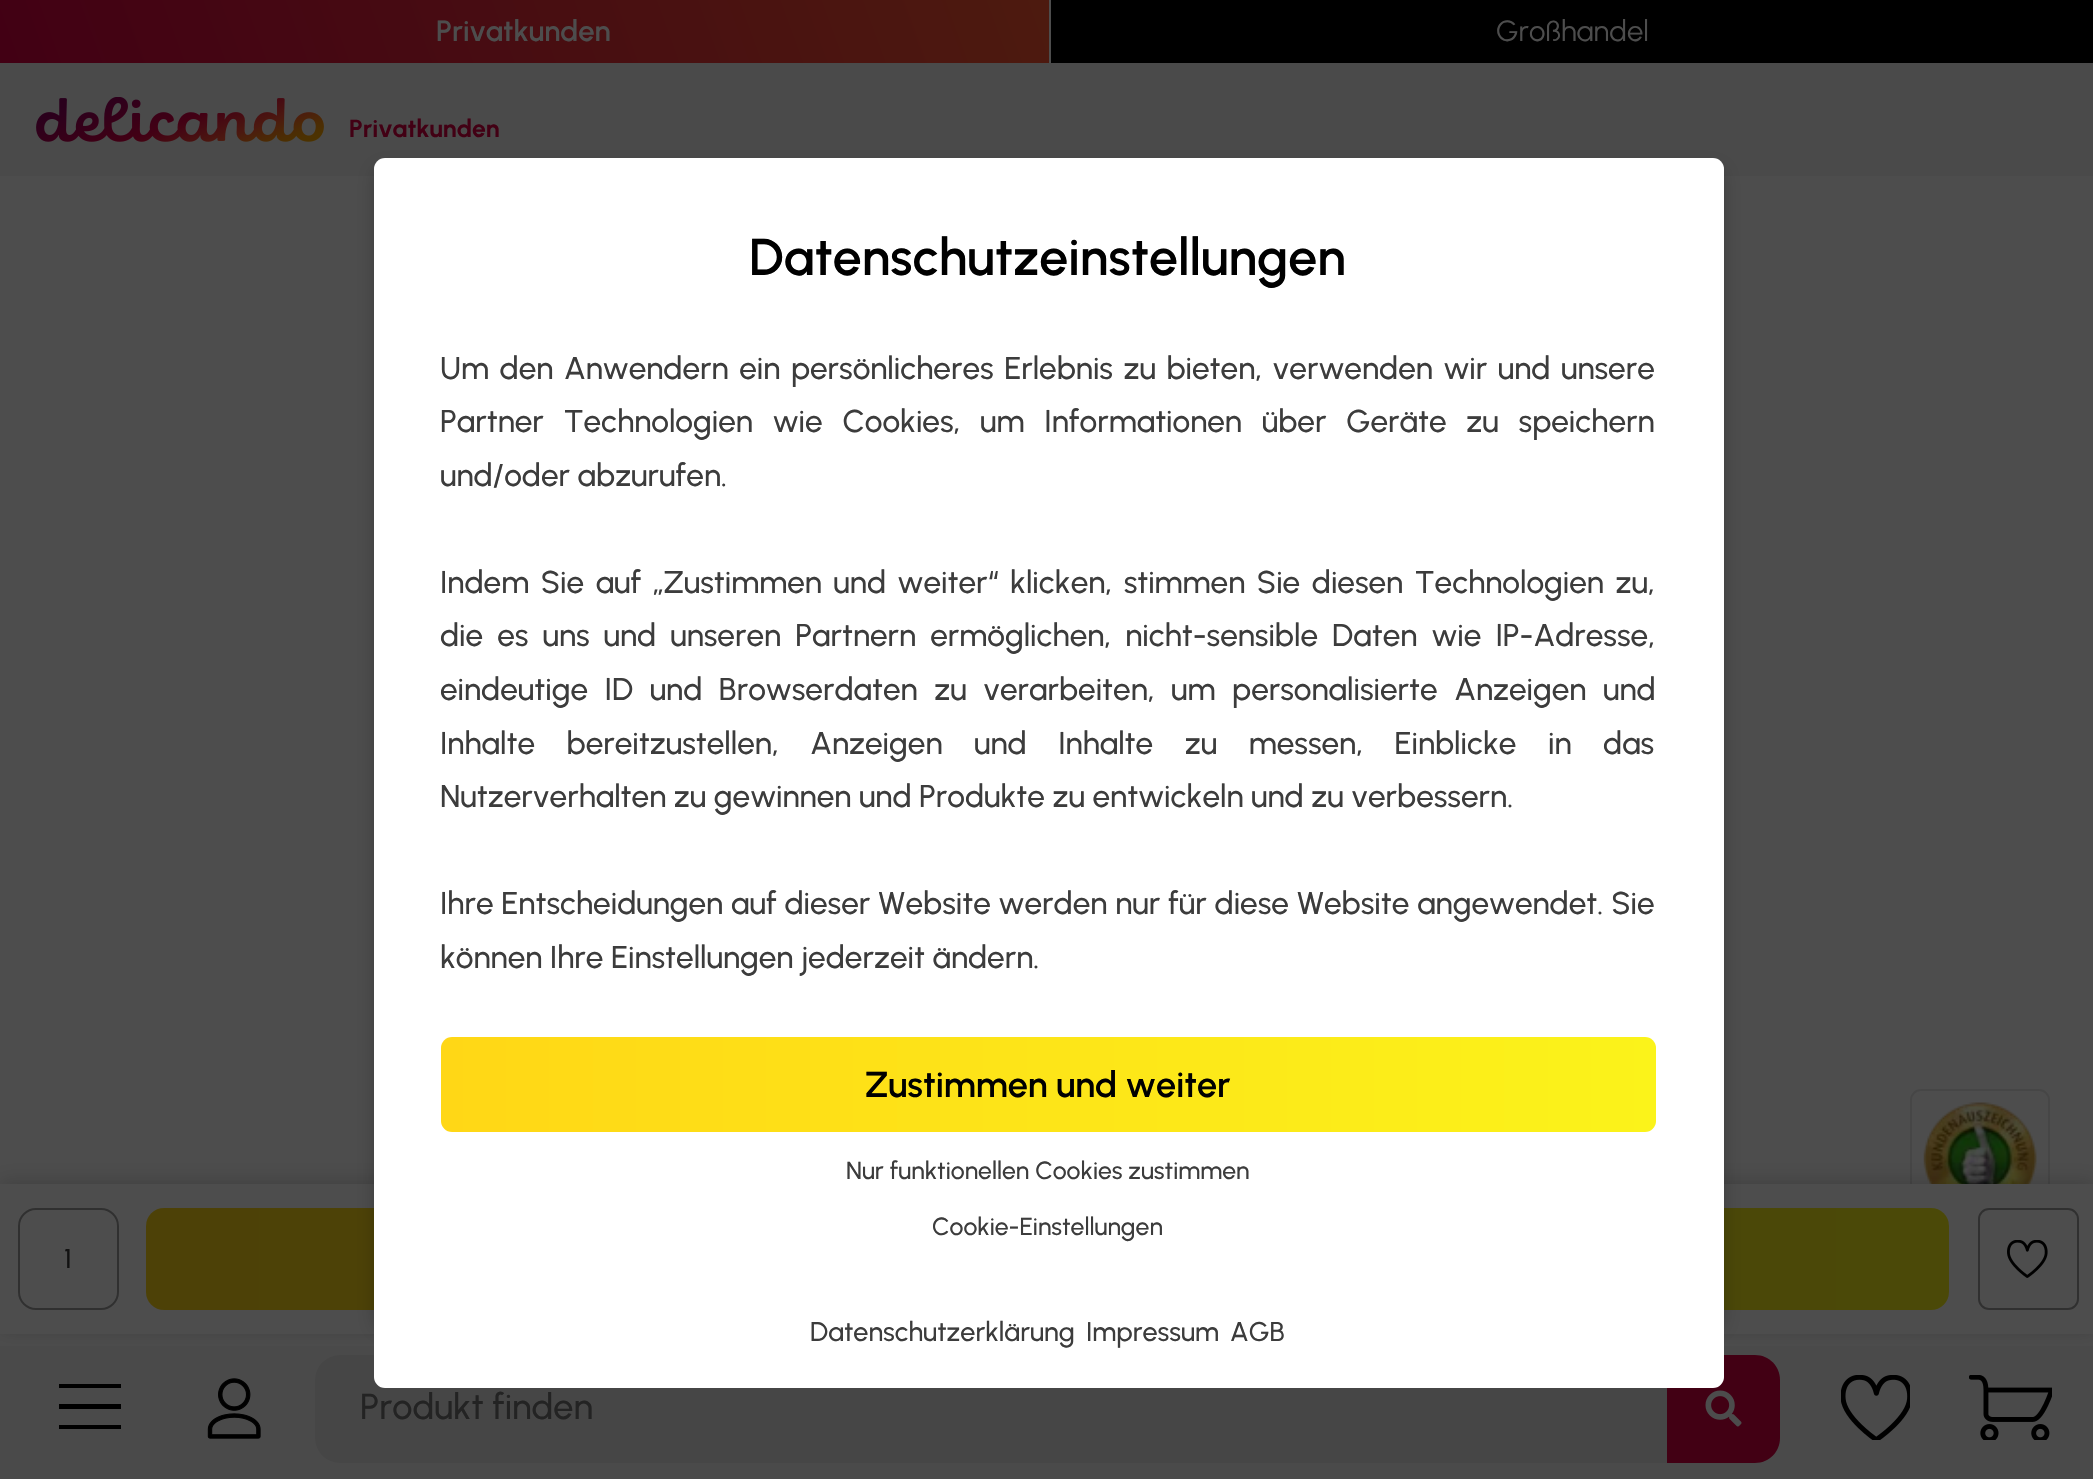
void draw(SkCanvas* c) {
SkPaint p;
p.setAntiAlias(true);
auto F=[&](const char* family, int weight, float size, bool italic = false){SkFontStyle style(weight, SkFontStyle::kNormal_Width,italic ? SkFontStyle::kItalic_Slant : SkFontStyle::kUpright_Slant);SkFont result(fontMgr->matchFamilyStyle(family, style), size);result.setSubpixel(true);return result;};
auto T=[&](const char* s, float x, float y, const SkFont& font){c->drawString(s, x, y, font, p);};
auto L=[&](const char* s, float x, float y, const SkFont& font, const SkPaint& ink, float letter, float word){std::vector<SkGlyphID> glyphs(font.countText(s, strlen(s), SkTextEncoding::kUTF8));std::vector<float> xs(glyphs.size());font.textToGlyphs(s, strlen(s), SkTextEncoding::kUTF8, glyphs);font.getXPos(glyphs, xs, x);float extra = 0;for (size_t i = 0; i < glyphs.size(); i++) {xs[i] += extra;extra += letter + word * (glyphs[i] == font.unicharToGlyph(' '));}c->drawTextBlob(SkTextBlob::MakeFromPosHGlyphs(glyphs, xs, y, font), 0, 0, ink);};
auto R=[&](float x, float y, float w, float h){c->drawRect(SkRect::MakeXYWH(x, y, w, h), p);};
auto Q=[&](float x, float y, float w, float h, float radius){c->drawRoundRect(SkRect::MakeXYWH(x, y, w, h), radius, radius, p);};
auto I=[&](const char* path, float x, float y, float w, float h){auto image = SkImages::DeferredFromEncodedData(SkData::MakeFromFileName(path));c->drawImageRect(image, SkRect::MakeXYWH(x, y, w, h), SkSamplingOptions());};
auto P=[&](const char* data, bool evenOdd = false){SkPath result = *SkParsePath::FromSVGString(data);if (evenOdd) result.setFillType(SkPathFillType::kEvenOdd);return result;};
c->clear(0xff4d4d4d);
p.setColor(0xff4a4a4a);
R(0,63,2093,113);
p.setColor(0xff000000);
R(1051,0,1042,63);
{
const SkColor colors[] = {0xff420014,0xff4d1a0f};
const float stops[] = {0,1};
const SkPoint ends[] = {{51,204}, {997,-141}};
p.setShader(SkGradientShader::MakeLinear(ends, colors, stops, 2, SkTileMode::kClamp));
p.setAlpha(255);
}
R(0,0,1049,63);
auto f1 = F("Urbanist",600,29.25);
p.setShader(nullptr);
p.setColor(0xff4d4d4d);
T("Privatkunden",436,41,f1);
auto f2 = F("Urbanist",400,29.25);
T("Großhandel",1496,41,f2);
I("1.png",36,97,288,45);
auto f3 = F("Urbanist",700,24.75);
p.setColor(0xff420014);
T("Privatkunden",349,137,f3);
p.setStroke(true);
p.setStrokeWidth(2);
p.setColor(0xff464646);
c->drawRoundRect(SkRect::MakeXYWH(1911,1090,138,180),10,10,p);
I("3.png",1923,1102,114,82);
p.setStroke(false);
p.setColor(0x29000000);
p.setMaskFilter(SkMaskFilter::MakeBlur(kNormal_SkBlurStyle, 9));
c->drawRect(SkRect::MakeXYWH(0,1181,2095,151),p);
p.setMaskFilter(nullptr);
p.setColor(0xff4d4d4d);
R(0,1184,2093,150);
p.setStroke(true);
p.setColor(0xff303030);
c->drawRoundRect(SkRect::MakeXYWH(19,1209,99,100),17,17,p);
auto f4 = F("Urbanist",500,27);
p.setStroke(false);
p.setColor(0xff121212);
T("1",64,1268,f4);
{
const SkColor colors[] = {0xff4d4107,0xff4b4908};
const float stops[] = {0,1};
const SkPoint ends[] = {{146,1259}, {1949,1259}};
p.setShader(SkGradientShader::MakeLinear(ends, colors, stops, 2, SkTileMode::kClamp));
p.setAlpha(255);
}
Q(146,1208,1803,102,18);
p.setStroke(true);
p.setShader(nullptr);
p.setColor(0xff303030);
c->drawRoundRect(SkRect::MakeXYWH(1979,1209,99,100),10,10,p);
I("2.png",2007,1240,41,38);
p.setStroke(false);
p.setColor(0xff4a4a4a);
R(0,1346,2093,133);
p.setColor(0xff464646);
Q(315,1355,1465,108,25);
p.setColor(0xff420014);
c->drawPath(P("M1667 1355h88c14 0 25 11 25 25v58c0 14-11 25-25 25h-88z"),p);
p.setColor(0x33000000);
p.setMaskFilter(SkMaskFilter::MakeBlur(kNormal_SkBlurStyle, 9));
c->drawRoundRect(SkRect::MakeXYWH(374,167,1350,1163),11,11,p);
p.setMaskFilter(nullptr);
p.setColor(0xffffffff);
Q(374,158,1350,1163,11);
auto f5 = F("Urbanist",600,51.75);
p.setColor(0xff000000);
T("Datenschutzeinstellungen",749,275,f5);
auto f6 = F("Urbanist",500,31.5);
p.setColor(0xff3c3c3c);
L("Um den Anwendern ein persönlicheres Erlebnis zu bieten, verwenden wir und unsere",440,379,f6,p,0,3);
L("Partner Technologien wie Cookies, um Informationen über Geräte zu speichern",440,432,f6,p,0,12.25);
T("und/oder abzurufen.",440,486,f6);
L("Indem Sie auf „Zustimmen und weiter“ klicken, stimmen Sie diesen Technologien zu,",440,593,f6,p,0,4);
L("die es uns und unseren Partnern ermöglichen, nicht-sensible Daten wie IP-Adresse,",440,646,f6,p,0,6.5);
L("eindeutige ID und Browserdaten zu verarbeiten, um personalisierte Anzeigen und",440,700,f6,p,0,9);
L("Inhalte bereitzustellen, Anzeigen und Inhalte zu messen, Einblicke in das",440,754,f6,p,0,24);
T("Nutzerverhalten zu gewinnen und Produkte zu entwickeln und zu verbessern.",440,807,f6);
L("Ihre Entscheidungen auf dieser Website werden nur für diese Website angewendet. Sie",440,914,f6,p,0,.25);
T("können Ihre Einstellungen jederzeit ändern.",440,968,f6);
{
const SkColor colors[] = {0xffffd716,0xfffbf31a};
const float stops[] = {0,1};
const SkPoint ends[] = {{441,1085}, {1656,1085}};
p.setShader(SkGradientShader::MakeLinear(ends, colors, stops, 2, SkTileMode::kClamp));
p.setAlpha(255);
}
Q(441,1037,1215,95,11);
auto f7 = F("Urbanist",600,36);
p.setShader(nullptr);
p.setColor(0xff000000);
T("Zustimmen und weiter",865,1097,f7);
auto f8 = F("Urbanist",500,24.75);
p.setColor(0xff3c3c3c);
T("Nur funktionellen Cookies zustimmen",846,1179,f8);
T("Cookie-Einstellungen",932,1235,f8);
p.setColor(0xffffffff);
Q(374,1276,1350,112,11);
p.setColor(0xff3c3c3c);
T("Datenschutzerklärung",810,1341,f4);
T("Impressum",1086,1341,f4);
T("AGB",1230,1341,f4);
p.setColor(0xff000000);
R(59,1425,62,4);
R(59,1404,62,5);
R(59,1384,62,4);
I("4.png",207,1378,54,61);
auto f9 = F("Urbanist",500,36);
p.setColor(0xff232323);
T("Produkt finden",360,1419,f9);
I("5.png",1705,1390,37,37);
I("6.png",1841,1375,69,65);
I("7.png",1969,1375,83,65);
}
